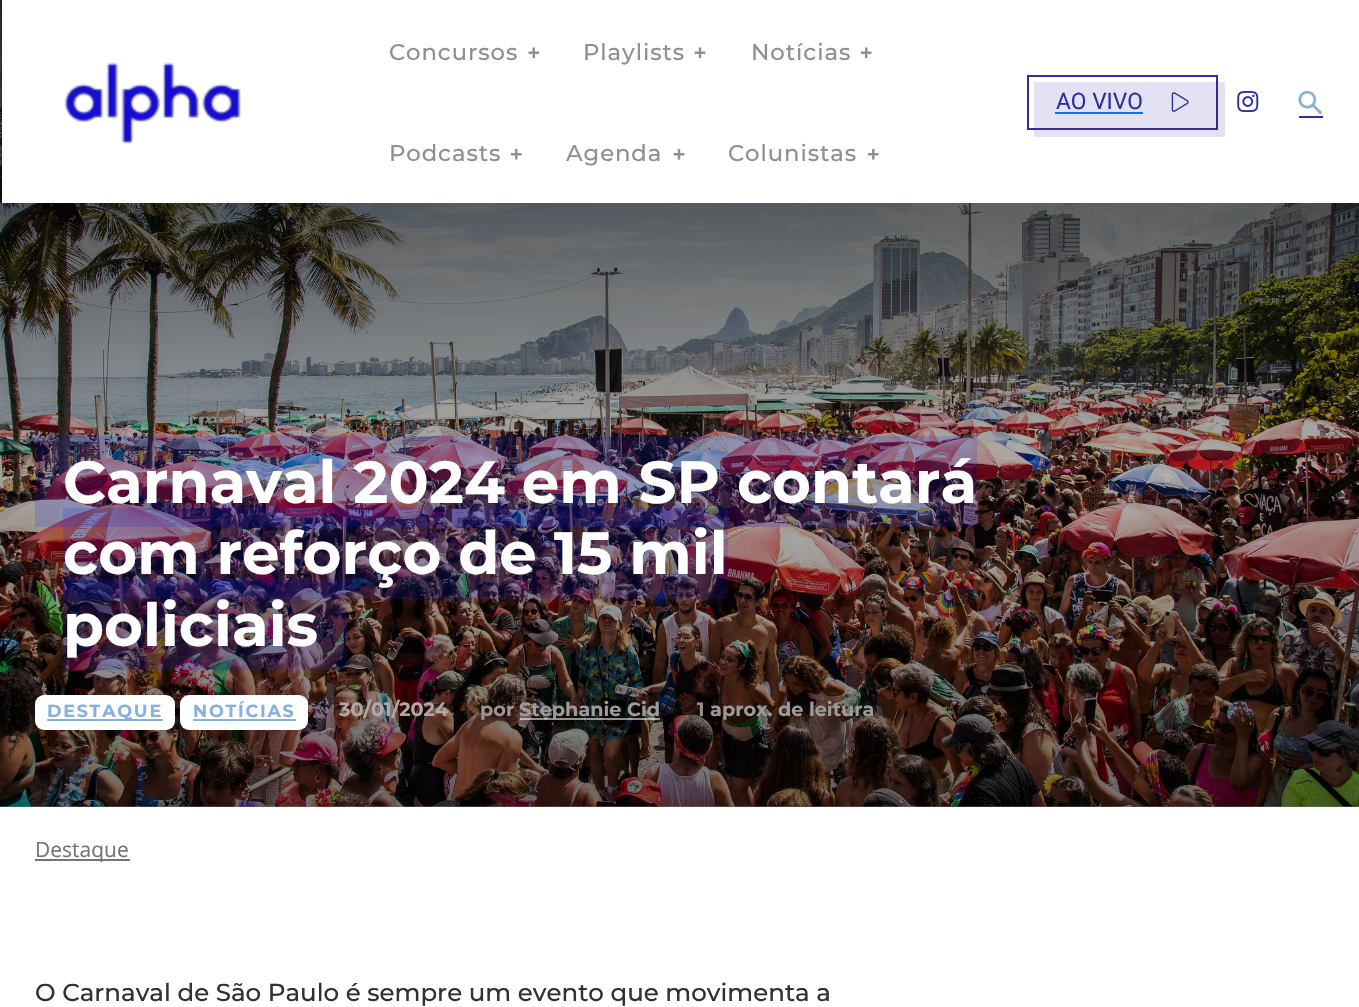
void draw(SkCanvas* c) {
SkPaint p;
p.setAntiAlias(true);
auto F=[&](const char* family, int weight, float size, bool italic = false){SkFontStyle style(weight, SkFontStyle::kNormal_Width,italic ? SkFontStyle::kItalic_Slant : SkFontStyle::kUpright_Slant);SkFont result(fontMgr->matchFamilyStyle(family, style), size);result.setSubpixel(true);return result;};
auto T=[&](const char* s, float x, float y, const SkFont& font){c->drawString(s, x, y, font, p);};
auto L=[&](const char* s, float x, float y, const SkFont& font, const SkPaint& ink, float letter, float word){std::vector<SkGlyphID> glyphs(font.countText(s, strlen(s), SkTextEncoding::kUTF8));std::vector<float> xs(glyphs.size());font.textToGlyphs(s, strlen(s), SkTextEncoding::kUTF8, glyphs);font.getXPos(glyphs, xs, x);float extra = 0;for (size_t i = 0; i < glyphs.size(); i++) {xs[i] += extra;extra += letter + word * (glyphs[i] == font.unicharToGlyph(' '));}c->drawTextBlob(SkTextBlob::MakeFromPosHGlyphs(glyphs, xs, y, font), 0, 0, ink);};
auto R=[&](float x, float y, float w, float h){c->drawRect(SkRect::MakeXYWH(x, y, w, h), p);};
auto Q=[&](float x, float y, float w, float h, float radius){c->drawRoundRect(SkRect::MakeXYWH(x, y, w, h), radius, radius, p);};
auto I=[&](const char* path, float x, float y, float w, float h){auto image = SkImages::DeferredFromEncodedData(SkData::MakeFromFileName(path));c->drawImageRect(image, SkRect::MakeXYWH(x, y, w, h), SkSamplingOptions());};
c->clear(0xffffffff);
I("10.png",0,0,1359,807);
{
const SkColor colors[] = {0x8c000000,0x4d000000,0xd9000000};
const float stops[] = {0,.42,1};
const SkPoint ends[] = {{680,807}, {680,0}};
p.setShader(SkGradientShader::MakeLinear(ends, colors, stops, 3, SkTileMode::kClamp));
p.setAlpha(255);
}
R(0,0,1359,807);
p.setShader(nullptr);
p.setColor(0xffffffff);
R(2,0,1357,203);
I("1.png",64,61,177,83);
auto f1 = F("Montserrat",500,22.75);
p.setColor(0xff928f8e);
L("Concursos",389,60,f1,p,.9,0);
I("2.png",528,47,12,12);
L("Playlists",583,60,f1,p,.9,0);
I("3.png",694,47,12,12);
L("Notícias",751,60,f1,p,.9,0);
I("4.png",860,47,12,12);
L("Podcasts",389,161,f1,p,.9,0);
I("5.png",510,148,12,12);
L("Agenda",566,161,f1,p,.9,0);
I("6.png",673,148,12,12);
L("Colunistas",728,161,f1,p,.9,0);
I("5.png",867,148,12,12);
p.setColor(0xffe2e2f2);
R(1034,82,191,55);
p.setColor(0xff0d6efd);
R(1055,112,88,2);
I("7.png",1171,92,18,20);
p.setStroke(true);
p.setStrokeWidth(2);
p.setColor(0xff312da1);
c->drawRect(SkRect::MakeXYWH(1028,76,189,53),p);
auto f2 = F("Roboto",400,22.75);
p.setStroke(false);
T("AO VIVO",1056,109,f2);
I("8.png",1237,91,22,21);
I("9.png",1298,90,24,25);
R(1299,116,24,2);
p.setColor(0x290b1aea);
R(35,436,942,91);
auto f3 = F("Montserrat",700,59.5);
p.setColor(0xffffffff);
T("Carnaval 2024 em SP contará",63,503,f3);
p.setColor(0x290b1aea);
R(63,508,665,91);
R(63,579,284,91);
p.setColor(0xffffffff);
T("com reforço de 15 mil",63,574,f3);
T("policiais",63,646,f3);
Q(35,695,140,35,9);
p.setColor(0xff87afe0);
R(47,719,116,2);
auto f4 = F("Montserrat",700,17.5);
L("DESTAQUE",47,717,f4,p,1.75,0);
p.setColor(0xffffffff);
Q(180,695,128,35,9);
p.setColor(0xff87afe0);
L("NOTÍCIAS",193,717,f4,p,1.75,0);
R(193,719,103,2);
auto f5 = F("Montserrat",700,19.25);
p.setColor(0xffb3a7a5);
T("30/01/2024",339,716,f5);
p.setColor(0xff9c9593);
T("por",480,716,f5);
p.setColor(0x8cffffff);
R(520,718,140,2);
p.setColor(0xff9d9a99);
T("Stephanie Cid",519,716,f5);
p.setColor(0xff928f8e);
T("1",697,716,f5);
p.setColor(0xff9d9a99);
T("aprox. de leitura",710,716,f5);
p.setColor(0xff747474);
R(35,859,95,2);
auto f6 = F("Open Sans",400,21);
T("Destaque",35,857,f6);
auto f7 = F("Montserrat",500,24.5);
p.setColor(0xff313131);
T("O Carnaval de São Paulo é sempre um evento que movimenta a",35,1001,f7);
}
